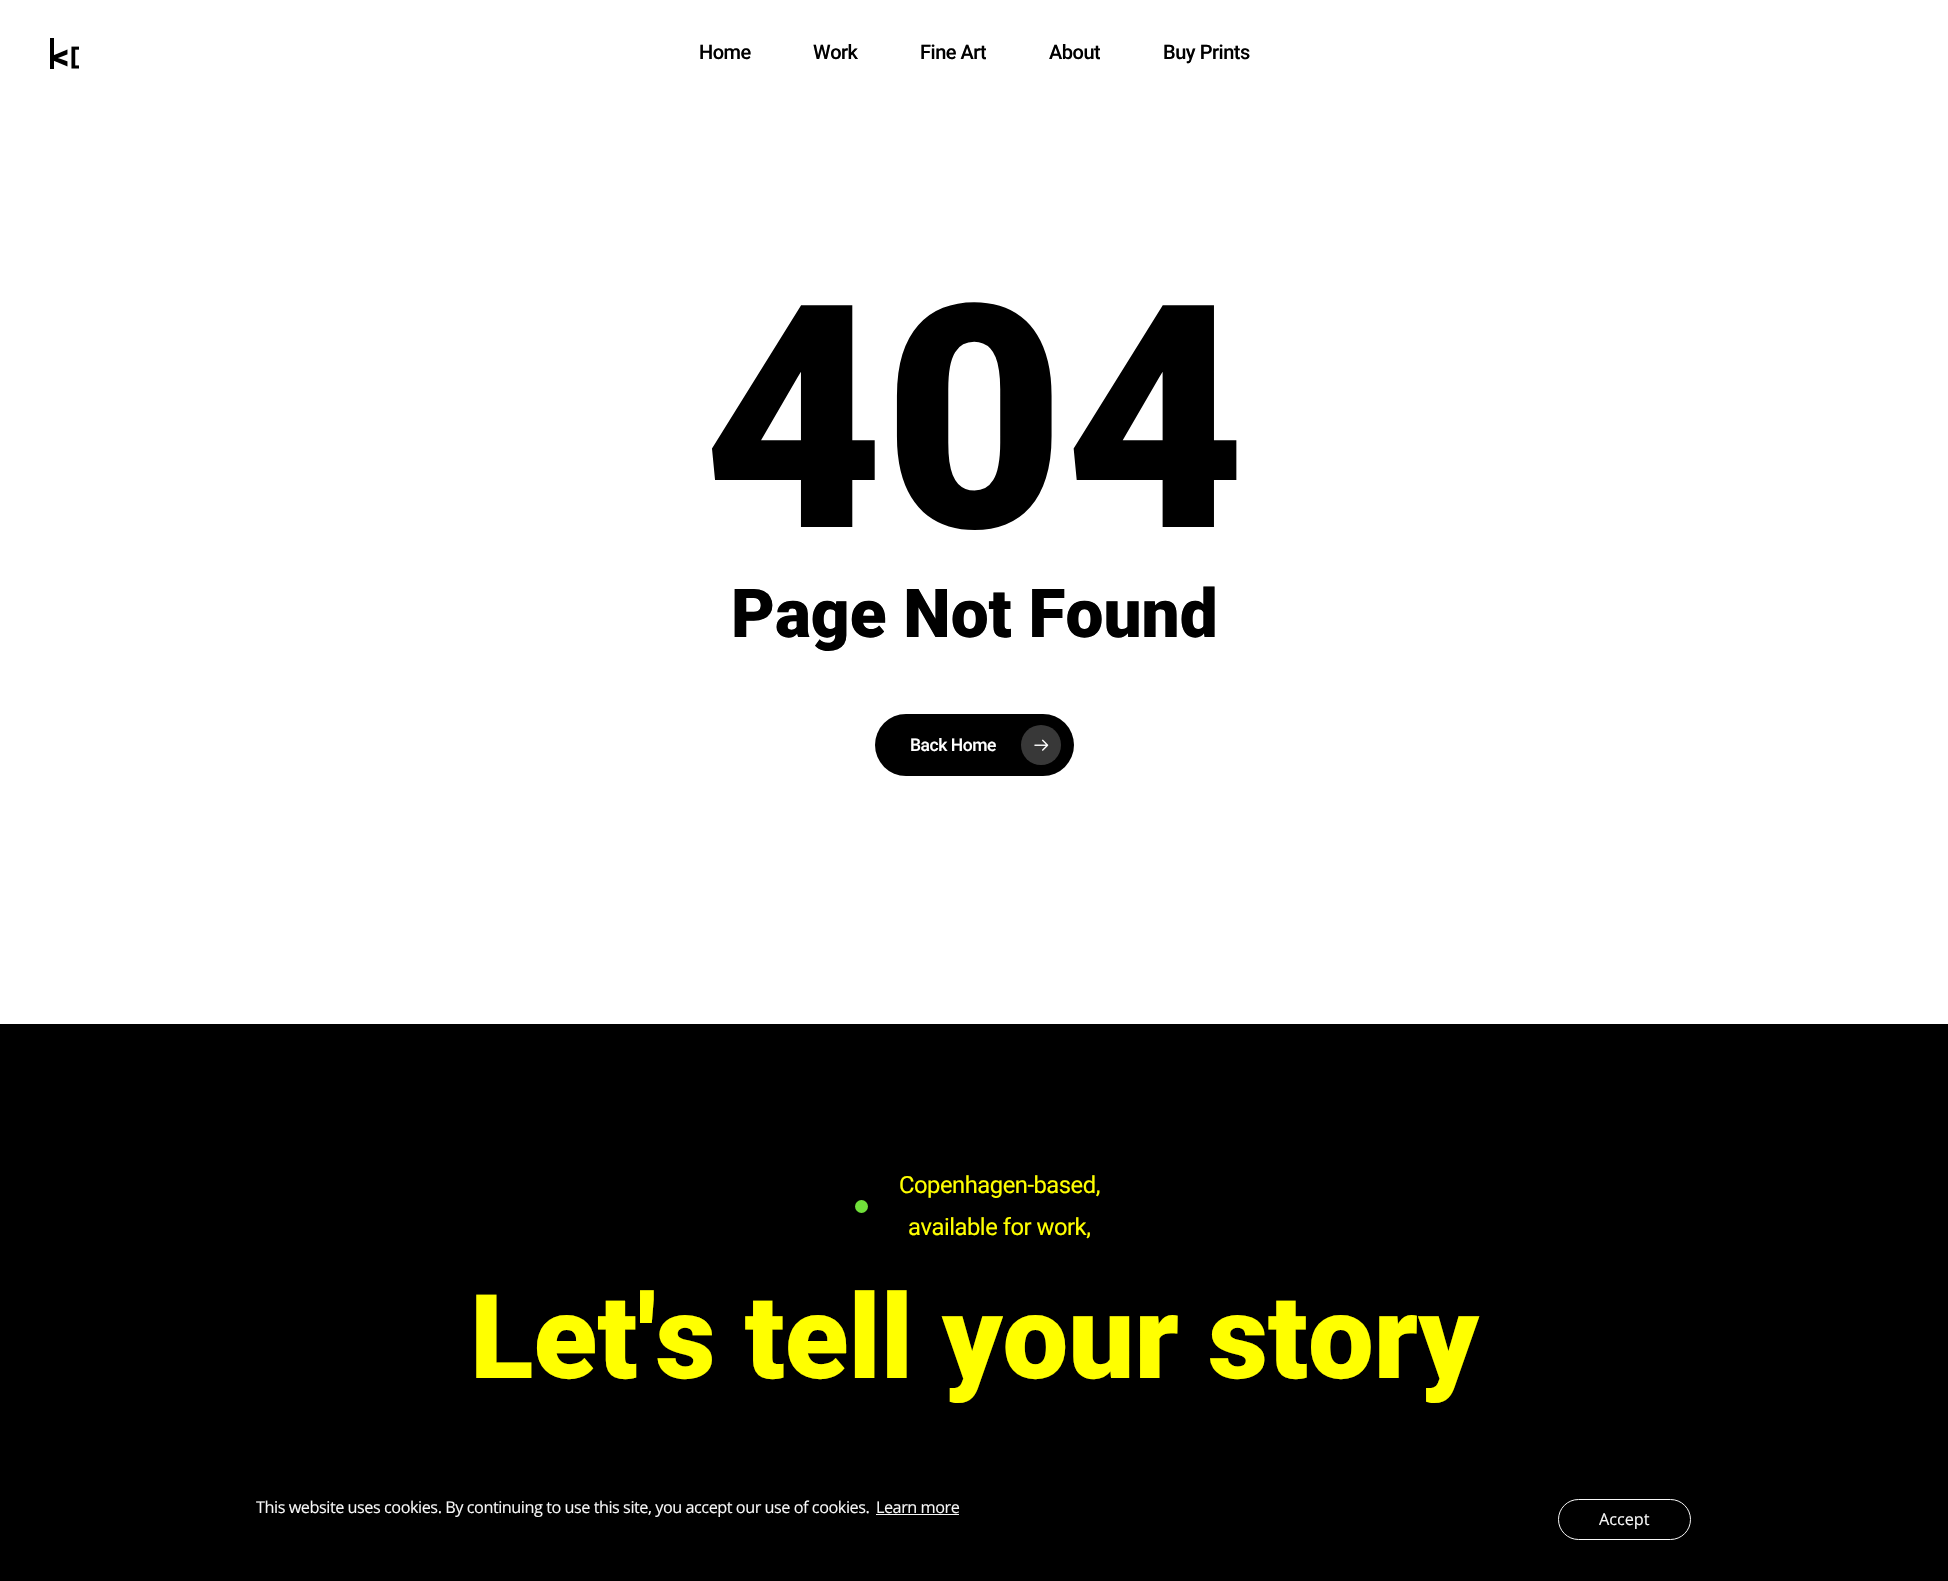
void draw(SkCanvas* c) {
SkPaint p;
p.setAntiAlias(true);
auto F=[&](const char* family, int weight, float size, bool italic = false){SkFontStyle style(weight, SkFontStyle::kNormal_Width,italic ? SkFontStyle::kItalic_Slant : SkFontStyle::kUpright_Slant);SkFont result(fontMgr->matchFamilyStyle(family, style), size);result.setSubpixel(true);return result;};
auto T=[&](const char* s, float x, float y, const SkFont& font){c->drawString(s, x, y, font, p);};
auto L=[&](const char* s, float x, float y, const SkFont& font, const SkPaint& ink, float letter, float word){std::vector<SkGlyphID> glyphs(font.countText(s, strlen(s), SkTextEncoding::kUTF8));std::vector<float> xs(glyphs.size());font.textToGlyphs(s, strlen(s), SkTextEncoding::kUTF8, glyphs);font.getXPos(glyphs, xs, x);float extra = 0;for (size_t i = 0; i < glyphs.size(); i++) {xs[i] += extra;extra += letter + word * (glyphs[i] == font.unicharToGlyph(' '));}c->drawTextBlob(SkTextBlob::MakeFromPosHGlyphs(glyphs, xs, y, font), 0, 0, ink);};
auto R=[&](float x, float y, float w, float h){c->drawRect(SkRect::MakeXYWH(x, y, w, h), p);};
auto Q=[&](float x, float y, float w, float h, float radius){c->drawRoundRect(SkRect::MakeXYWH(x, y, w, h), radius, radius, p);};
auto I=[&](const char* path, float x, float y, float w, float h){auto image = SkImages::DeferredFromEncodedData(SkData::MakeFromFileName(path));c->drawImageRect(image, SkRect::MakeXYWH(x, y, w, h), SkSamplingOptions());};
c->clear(0xffffffff);
I("1.png",50,38,29,31);
auto f1 = F("Roboto",500,20);
p.setColor(0xff000000);
L("Home",699,59,f1,p,-.47,0);
L("Work",813,59,f1,p,-.47,0);
c->save();
c->clipRect(SkRect::MakeXYWH(920,40,66,26));
L("Fine Art",920,59,f1,p,-.47,0);
c->restore();
c->save();
c->clipRect(SkRect::MakeXYWH(1049,40,51,26));
L("About",1049,59,f1,p,-.47,0);
c->restore();
L("Buy Prints",1163,59,f1,p,-.47,0);
auto f2 = F("Roboto",900,312);
T("404",703,527,f2);
auto f3 = F("Roboto",900,67.5);
T("Page Not Found",731,637,f3);
Q(875,714,199,62,31);
auto f4 = F("Roboto",500,17.5);
p.setColor(0xffffffff);
L("Back Home",910,751,f4,p,-.47,0);
p.setColor(0xff383838);
c->drawCircle(1041,745,20,p);
I("2.png",1034,739,15,12);
p.setColor(0xff000000);
R(0,1024,1948,557);
p.setColor(0xff70e03a);
c->drawCircle(861.5,1206.5,6.5,p);
auto f5 = F("Roboto",400,23.75);
p.setColor(0xffffff00);
L("Copenhagen-based,",899,1193,f5,p,-.47,0);
L("available for work,",908,1235,f5,p,-.47,0);
auto f6 = F("Roboto",900,117);
T("Let's tell your story",470,1378,f6);
auto f7 = F("Open Sans",400,16.25);
p.setColor(0xfff7f7f7);
L("This website uses cookies. By continuing to use this site, you accept our use of cookies.",256,1513,f7,p,-.47,0);
L("Learn more",876,1513,f7,p,-.47,0);
R(876,1514,83,1);
p.setStroke(true);
p.setStrokeWidth(1);
c->drawRoundRect(SkRect::MakeXYWH(1558.5,1499.5,132,40),20,20,p);
p.setStroke(false);
T("Accept",1599,1525,f7);
}
